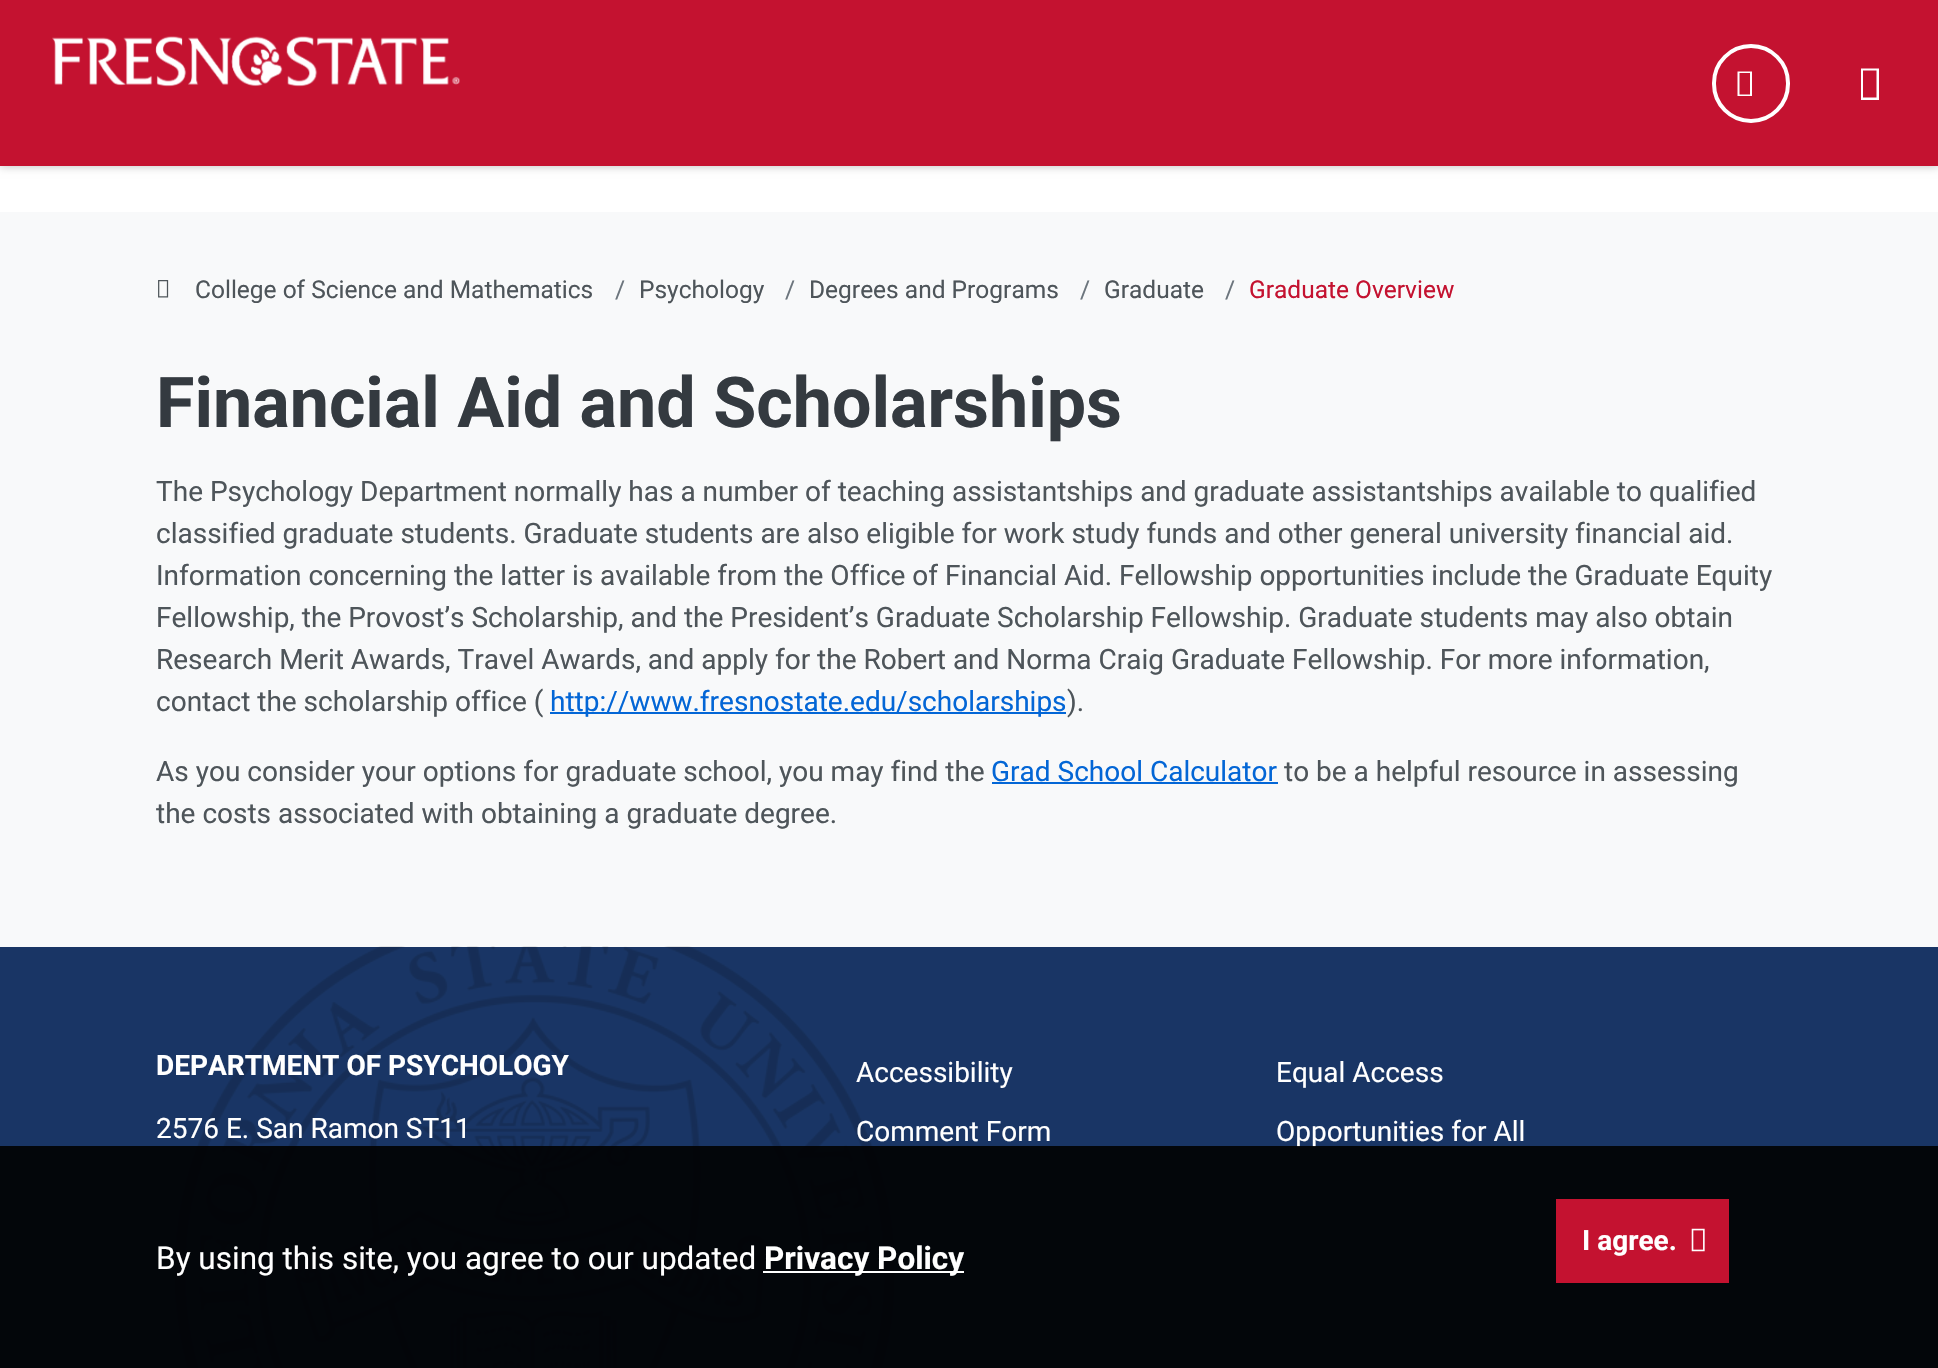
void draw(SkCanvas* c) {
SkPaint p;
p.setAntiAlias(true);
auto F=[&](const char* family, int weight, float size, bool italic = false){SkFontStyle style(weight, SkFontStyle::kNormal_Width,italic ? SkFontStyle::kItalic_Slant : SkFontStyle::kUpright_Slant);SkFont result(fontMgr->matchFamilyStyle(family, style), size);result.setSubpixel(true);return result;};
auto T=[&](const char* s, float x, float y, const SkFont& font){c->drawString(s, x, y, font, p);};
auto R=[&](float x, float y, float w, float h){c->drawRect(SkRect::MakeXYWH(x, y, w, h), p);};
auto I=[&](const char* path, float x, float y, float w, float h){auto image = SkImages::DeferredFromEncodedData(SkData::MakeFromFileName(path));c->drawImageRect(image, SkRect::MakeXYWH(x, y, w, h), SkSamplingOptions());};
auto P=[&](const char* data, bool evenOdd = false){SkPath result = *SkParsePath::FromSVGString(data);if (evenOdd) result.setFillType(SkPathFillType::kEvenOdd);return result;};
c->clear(0xfff8f9fa);
p.setColor(0xffffffff);
R(0,166,1938,46);
p.setColor(0x40000000);
p.setMaskFilter(SkMaskFilter::MakeBlur(kNormal_SkBlurStyle, 4.5));
c->drawRect(SkRect::MakeXYWH(0,0,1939,166),p);
p.setMaskFilter(nullptr);
p.setColor(0xffc41230);
R(0,0,1938,166);
I("1.png",52,36,408,51);
p.setStroke(true);
p.setStrokeWidth(4);
p.setColor(0xffffffff);
c->drawRoundRect(SkRect::MakeXYWH(1714,46,74,75),37,37,p);
p.setStroke(false);
c->drawPath(P("M1737.5 96v-24.5h14.5v24.5zm2-1.5h10.5v-21.5h-10.5z"),p);
c->drawPath(P("M1861 100v-31.5h18v31.5zm2-2.5h13.5v-27h-13.5z"),p);
I("2.png",158,280,11,18);
auto f1 = F("Roboto",400,24.5);
p.setColor(0xff4e555a);
T("College of Science and Mathematics",195,298,f1);
p.setColor(0xff6c757d);
T("/",615,298,f1);
p.setColor(0xff4e555a);
T("Psychology",639,298,f1);
p.setColor(0xff6c757d);
T("/",785,298,f1);
p.setColor(0xff4e555a);
T("Degrees and Programs",809,298,f1);
p.setColor(0xff6c757d);
T("/",1080,298,f1);
p.setColor(0xff4e555a);
T("Graduate",1104,298,f1);
p.setColor(0xff6c757d);
T("/",1225,298,f1);
p.setColor(0xffc41230);
T("Graduate Overview",1249,298,f1);
auto f2 = F("Roboto",700,70);
p.setColor(0xff343a40);
T("Financial Aid and Scholarships",156,427,f2);
auto f3 = F("Roboto",400,28);
p.setColor(0xff4e555a);
T("The Psychology Department normally has a number of teaching assistantships and graduate assistantships available to qualified",156,501,f3);
T("classified graduate students. Graduate students are also eligible for work study funds and other general university financial aid.",156,543,f3);
T("Information concerning the latter is available from the Office of Financial Aid. Fellowship opportunities include the Graduate Equity",156,585,f3);
T("Fellowship, the Provost’s Scholarship, and the President’s Graduate Scholarship Fellowship. Graduate students may also obtain",156,627,f3);
T("Research Merit Awards, Travel Awards, and apply for the Robert and Norma Craig Graduate Fellowship. For more information,",156,669,f3);
T("contact the scholarship office (",156,711,f3);
p.setColor(0xff0366d6);
R(550,712,516,2);
T("http://www.fresnostate.edu/scholarships",550,711,f3);
p.setColor(0xff4e555a);
T(").",1067,711,f3);
T("As you consider your options for graduate school, you may find the",156,781,f3);
p.setColor(0xff0366d6);
T("Grad School Calculator",991,781,f3);
R(992,782,286,2);
p.setColor(0xff4e555a);
T("to be a helpful resource in assessing",1284,781,f3);
T("the costs associated with obtaining a graduate degree.",156,823,f3);
p.setColor(0xff193565);
R(0,947,1938,421);
I("3.png",175,946,719,422);
auto f4 = F("Roboto",700,28);
p.setColor(0xffffffff);
T("DEPARTMENT OF PSYCHOLOGY",156,1075,f4);
T("2576 E. San Ramon ST11",156,1138,f3);
T("Accessibility",856,1082,f3);
T("Comment Form",856,1141,f3);
T("Equal Access",1276,1082,f3);
T("Opportunities for All",1276,1141,f3);
p.setColor(0xe6000000);
R(0,1146,1938,222);
auto f5 = F("Roboto",400,31.5);
p.setColor(0xffffffff);
T("By using this site, you agree to our updated",156,1269,f5);
R(763,1271,201,2);
auto f6 = F("Roboto",700,31.5);
T("Privacy Policy",764,1269,f6);
p.setColor(0xffc41230);
R(1556,1199,173,84);
p.setColor(0xffffffff);
T("I agree.",1582,1250,f4);
I("4.png",1691,1228,14,24);
}
